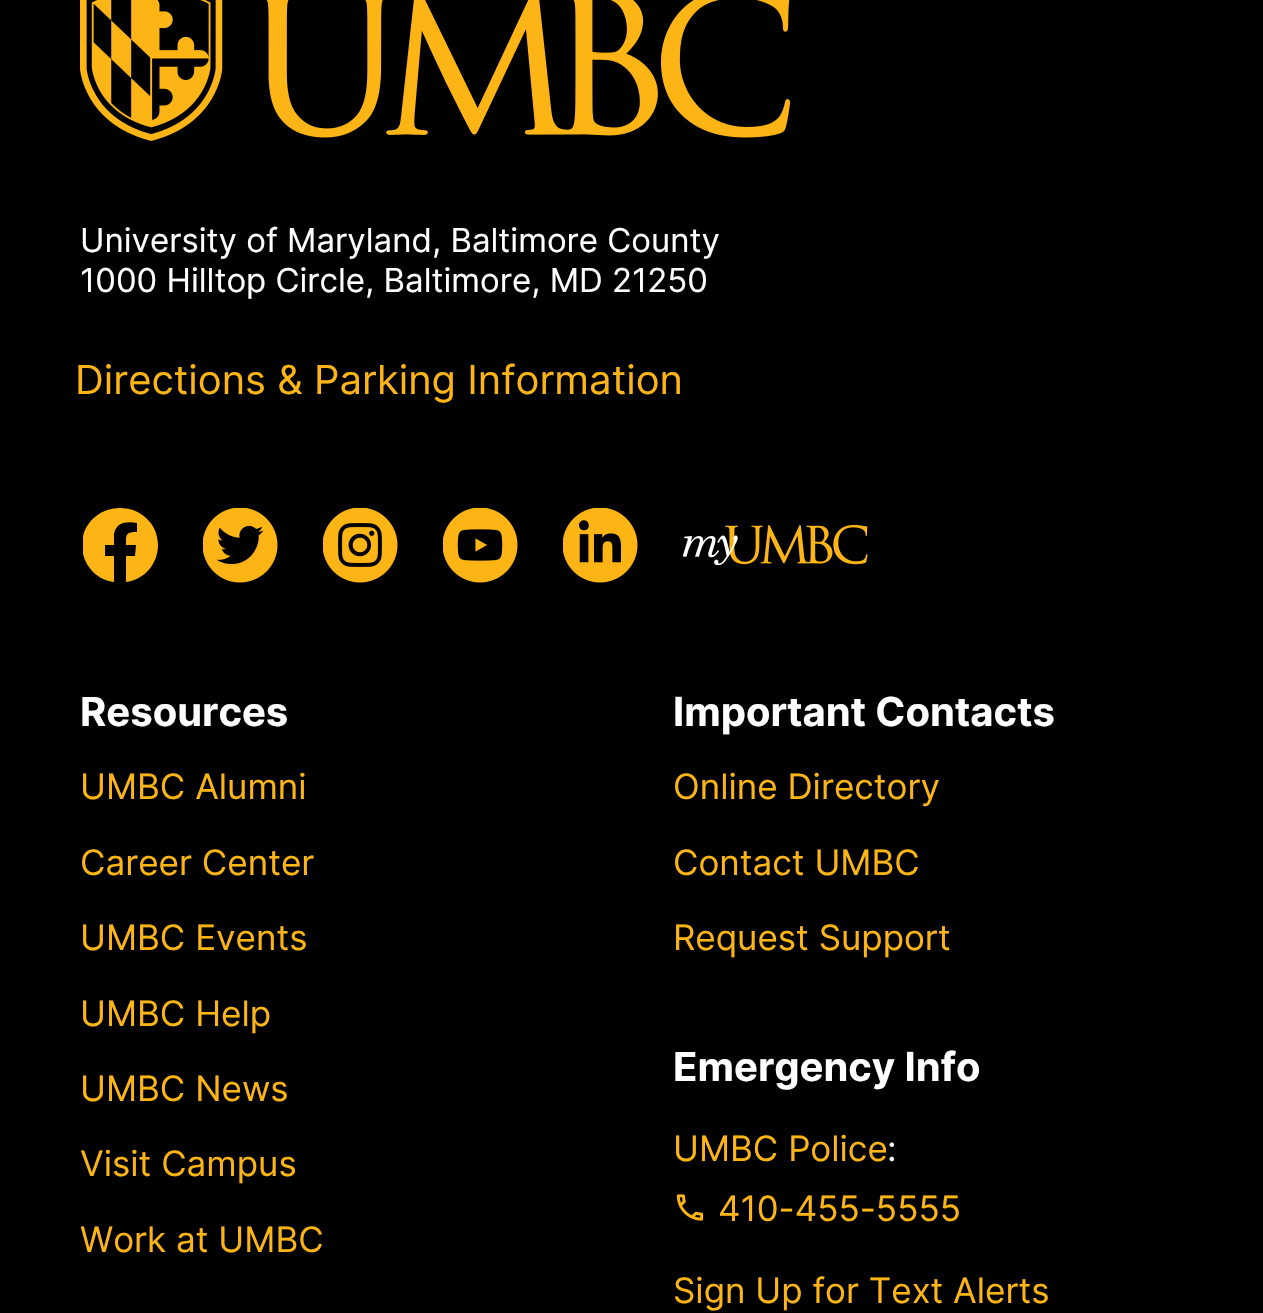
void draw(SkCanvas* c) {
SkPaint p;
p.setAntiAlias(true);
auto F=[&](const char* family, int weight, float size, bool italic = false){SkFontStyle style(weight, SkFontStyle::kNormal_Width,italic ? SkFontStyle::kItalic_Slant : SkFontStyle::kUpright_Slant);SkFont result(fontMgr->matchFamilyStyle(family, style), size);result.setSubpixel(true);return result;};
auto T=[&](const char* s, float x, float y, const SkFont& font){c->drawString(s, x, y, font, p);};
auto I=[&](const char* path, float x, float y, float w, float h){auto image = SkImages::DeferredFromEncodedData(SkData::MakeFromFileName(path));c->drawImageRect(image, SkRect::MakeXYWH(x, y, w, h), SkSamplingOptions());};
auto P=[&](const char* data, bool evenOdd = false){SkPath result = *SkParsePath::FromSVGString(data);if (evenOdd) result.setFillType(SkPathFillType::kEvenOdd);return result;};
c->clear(0xff000000);
I("1.png",80,0,710,141);
auto f1 = F("Inter",400,33);
p.setColor(0xffffffff);
T("University of Maryland, Baltimore County",80,252,f1);
T("1000 Hilltop Circle, Baltimore, MD 21250",80,292,f1);
auto f2 = F("Inter",400,40);
p.setColor(0xfffdb515);
T("Directions & Parking Information",75,394,f2);
c->save();
c->clipRect(SkRect::MakeXYWH(83,508,75,75));
c->drawPath(P("M120 508c-21 0-38 16-38 37c0 19 14 35 32 37v-26h-9v-11h9v-11c2-12 13-13 23-11v9c-12 0-11 3-11 13h10l-1 11h-9v26c18-2 32-18 32-37c0-21-17-37-38-37z"),p);
c->restore();
I("2.png",203,508,75,75);
I("3.png",323,508,75,75);
I("4.png",443,508,75,75);
I("5.png",563,508,75,75);
I("6.png",683,525,185,40);
auto f3 = F("Inter",700,40);
p.setColor(0xffffffff);
T("Resources",80,726,f3);
auto f4 = F("Inter",400,35);
p.setColor(0xfffdb515);
T("UMBC Alumni",80,799,f4);
T("Career Center",80,875,f4);
T("UMBC Events",80,950,f4);
T("UMBC Help",80,1026,f4);
T("UMBC News",80,1101,f4);
T("Visit Campus",80,1176,f4);
T("Work at UMBC",80,1252,f4);
p.setColor(0xffffffff);
T("Important Contacts",673,726,f3);
p.setColor(0xfffdb515);
T("Online Directory",673,799,f4);
T("Contact UMBC",673,875,f4);
T("Request Support",673,950,f4);
p.setColor(0xffffffff);
T("Emergency Info",673,1081,f3);
p.setColor(0xfffdb515);
T("UMBC Police",673,1161,f4);
p.setColor(0xffffffff);
T(":",887,1161,f4);
I("7.png",676,1194,28,27);
p.setColor(0xfffdb515);
T("410-455-5555",718,1221,f4);
T("Sign Up for Text Alerts",673,1303,f4);
}
